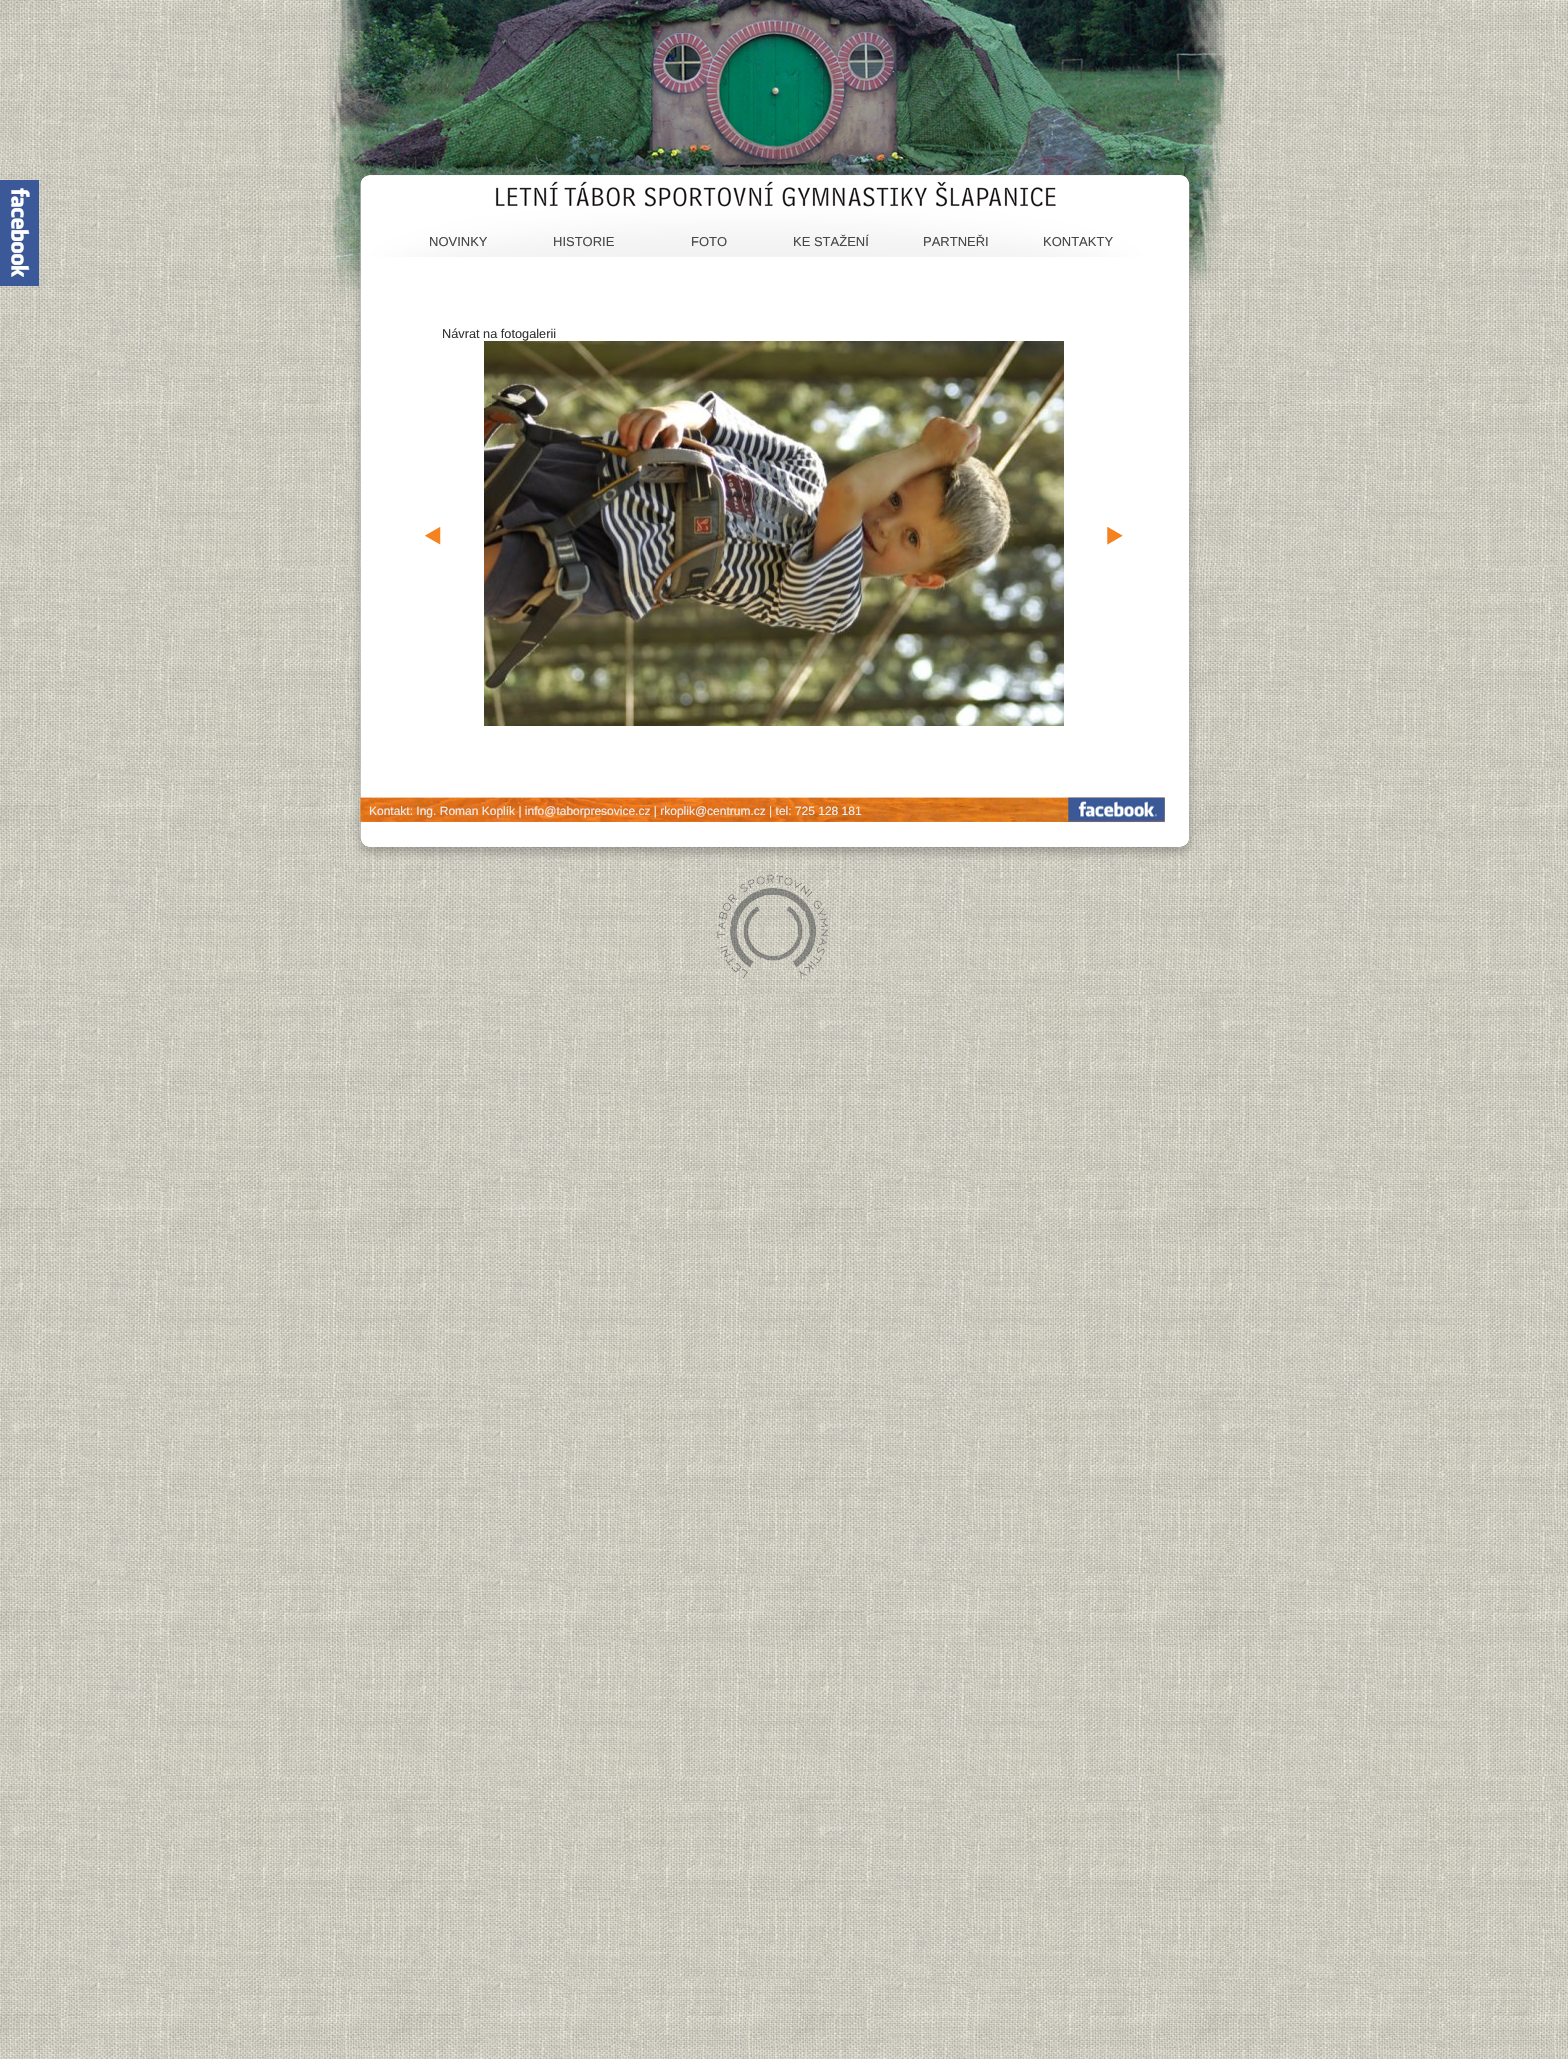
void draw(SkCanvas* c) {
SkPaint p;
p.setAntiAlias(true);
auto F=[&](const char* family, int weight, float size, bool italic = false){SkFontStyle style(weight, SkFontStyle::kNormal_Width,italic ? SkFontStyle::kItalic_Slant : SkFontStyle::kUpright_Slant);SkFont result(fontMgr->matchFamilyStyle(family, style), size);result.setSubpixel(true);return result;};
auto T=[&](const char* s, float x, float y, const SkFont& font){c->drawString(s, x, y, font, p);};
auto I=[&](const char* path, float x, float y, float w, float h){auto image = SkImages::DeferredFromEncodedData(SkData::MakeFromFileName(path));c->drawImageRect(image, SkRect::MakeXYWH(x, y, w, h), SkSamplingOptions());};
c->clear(0xffffffff);
I("1.png",0,0,1568,2059);
I("2.png",0,180,39,106);
I("3.png",327,0,898,326);
auto f1 = F("Liberation Sans",400,13);
p.setColor(0xff464749);
T("NOVINKY",429,246,f1);
T("HISTORIE",553,246,f1);
T("FOTO",691,246,f1);
T("KE STAŽENÍ",793,246,f1);
T("PARTNEŘI",923,246,f1);
T("KONTAKTY",1043,246,f1);
I("4.png",353,325,844,471);
auto f2 = F("Liberation Sans",400,12.75);
p.setColor(0xff333333);
T("Návrat na fotogalerii",442,338,f2);
I("5.png",425,527,16,18);
I("6.png",484,341,580,385);
I("7.png",1107,527,16,18);
I("8.png",353,796,844,26);
auto f3 = F("Liberation Sans",400,12);
p.setColor(0xffededed);
T("Kontakt: Ing. Roman Koplík | info@taborpresovice.cz | rkoplik@centrum.cz | tel: 725 128 181",369,815,f3);
I("10.png",353,822,844,38);
I("9.png",1068,797,97,26);
I("11.png",714,874,115,106);
}
